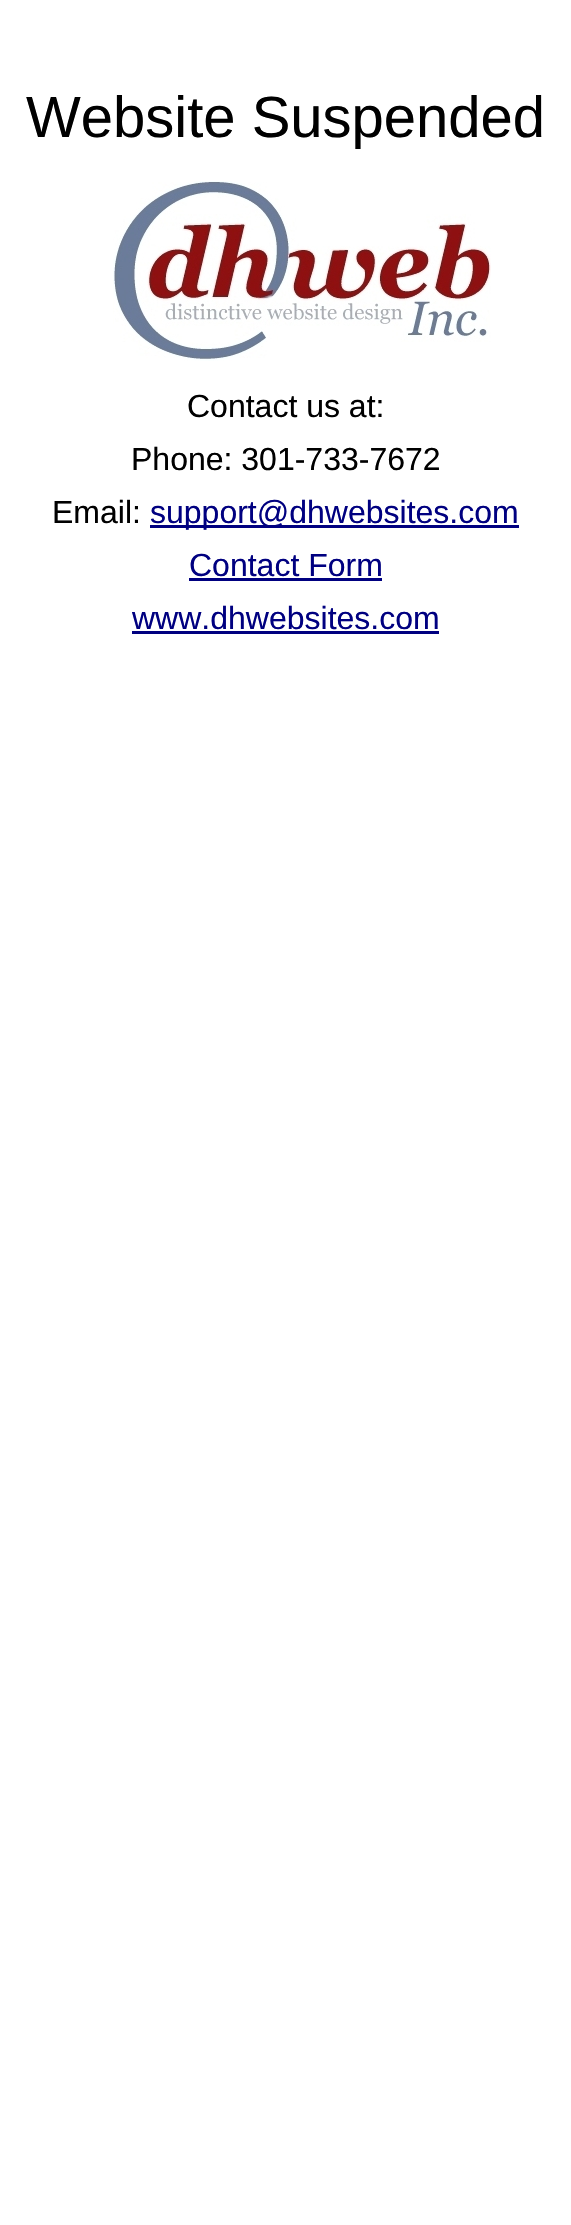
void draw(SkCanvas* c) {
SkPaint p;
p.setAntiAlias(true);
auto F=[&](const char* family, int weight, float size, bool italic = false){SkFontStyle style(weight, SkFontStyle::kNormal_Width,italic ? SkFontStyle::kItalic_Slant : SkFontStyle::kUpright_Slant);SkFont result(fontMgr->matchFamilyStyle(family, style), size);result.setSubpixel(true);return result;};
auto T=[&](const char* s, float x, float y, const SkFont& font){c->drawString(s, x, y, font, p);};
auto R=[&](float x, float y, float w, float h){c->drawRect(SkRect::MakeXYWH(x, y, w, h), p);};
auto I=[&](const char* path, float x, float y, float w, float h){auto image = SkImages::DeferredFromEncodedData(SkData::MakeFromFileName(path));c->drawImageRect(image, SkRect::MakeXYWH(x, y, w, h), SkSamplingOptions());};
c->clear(0xffffffff);
auto f1 = F("Liberation Sans",400,58);
p.setColor(0xff000000);
T("Website Suspended",26,137,f1);
I("1.png",113,181,378,180);
auto f2 = F("Liberation Sans",400,32);
T("Contact us at:",187,417,f2);
T("Phone: 301-733-7672",131,470,f2);
T("Email:",52,523,f2);
p.setColor(0xff000080);
R(150,525,369,3);
T("support@dhwebsites.com",150,523,f2);
T("Contact Form",189,576,f2);
R(189,578,193,3);
T("www.dhwebsites.com",132,629,f2);
R(132,631,307,3);
}
